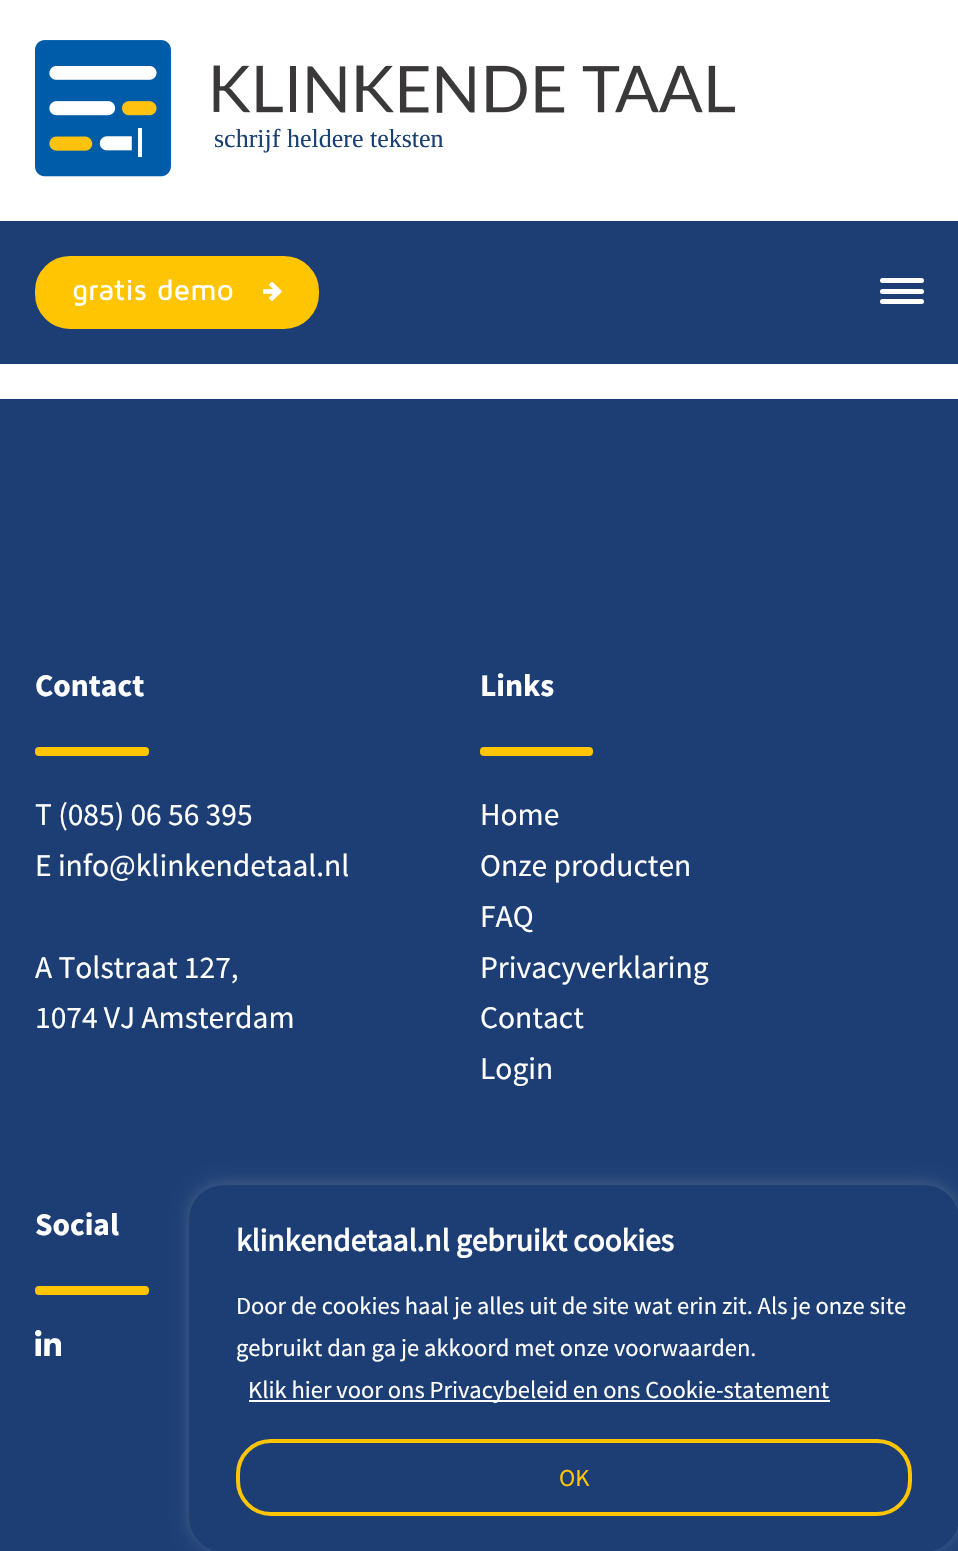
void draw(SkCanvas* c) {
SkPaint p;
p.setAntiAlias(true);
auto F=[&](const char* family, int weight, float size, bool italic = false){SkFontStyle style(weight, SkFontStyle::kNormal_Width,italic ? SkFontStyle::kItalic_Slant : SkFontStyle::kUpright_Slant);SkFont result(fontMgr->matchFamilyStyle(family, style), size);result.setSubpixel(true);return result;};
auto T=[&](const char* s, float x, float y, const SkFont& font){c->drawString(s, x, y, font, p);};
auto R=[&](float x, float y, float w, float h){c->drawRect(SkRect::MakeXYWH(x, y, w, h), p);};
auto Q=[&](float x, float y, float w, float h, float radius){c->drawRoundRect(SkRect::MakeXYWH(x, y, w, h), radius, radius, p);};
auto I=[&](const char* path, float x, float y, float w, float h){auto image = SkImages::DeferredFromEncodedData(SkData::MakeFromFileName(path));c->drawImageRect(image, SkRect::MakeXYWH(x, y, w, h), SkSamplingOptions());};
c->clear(0xffffffff);
auto f1 = F("Liberation Serif",400,26);
p.setColor(0xff194174);
T("schrijf heldere teksten",214,147,f1);
I("1.png",35,40,700,137);
p.setColor(0xff1c3e75);
R(0,221,958,143);
p.setColor(0xffffc503);
c->drawRoundRect(SkRect::MakeXYWH(36,257,282,71),34,34,p);
p.setStroke(true);
p.setStrokeWidth(2);
c->drawRoundRect(SkRect::MakeXYWH(36,257,282,71),34,34,p);
auto f2 = F("Maven Pro",500,29.75);
p.setStroke(false);
p.setColor(0xffffffff);
T("gratis demo",72,300,f2);
I("2.png",263,282,19,19);
Q(880,278,44,5,2.5);
Q(880,289,44,5,2.5);
Q(880,299,44,5,2.5);
p.setColor(0xff1c3e75);
R(0,399,958,1152);
auto f3 = F("Source Sans Pro",700,31.5);
p.setColor(0xffffffff);
T("Contact",35,696,f3);
p.setColor(0xffffc503);
Q(35,747,114,9,4);
auto f4 = F("Source Sans Pro",400,31.5);
p.setColor(0xffffffff);
T("T (085) 06 56 395",35,825,f4);
T("E info@klinkendetaal.nl",35,876,f4);
T("A Tolstraat 127,",35,978,f4);
T("1074 VJ Amsterdam",35,1028,f4);
T("Links",480,696,f3);
p.setColor(0xffffc503);
Q(480,747,113,9,4);
p.setColor(0xffffffff);
T("Home",480,825,f4);
T("Onze producten",480,876,f4);
T("FAQ",480,927,f4);
T("Privacyverklaring",480,978,f4);
T("Contact",480,1028,f4);
T("Login",480,1079,f4);
T("Social",35,1235,f3);
p.setColor(0xffffc503);
Q(35,1286,114,9,4);
I("3.png",35,1330,26,26);
p.setColor(0x4dacabab);
p.setMaskFilter(SkMaskFilter::MakeBlur(kNormal_SkBlurStyle, 9));
c->drawRoundRect(SkRect::MakeXYWH(189,1183,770,368),35,35,p);
p.setMaskFilter(nullptr);
p.setColor(0xff1c3e75);
c->drawRoundRect(SkRect::MakeXYWH(190,1186,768,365),34,34,p);
p.setStroke(true);
c->drawRoundRect(SkRect::MakeXYWH(190,1186,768,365),34,34,p);
auto f5 = F("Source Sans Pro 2",700,31.5);
p.setStroke(false);
p.setColor(0xffffffff);
T("klinkendetaal.nl gebruikt cookies",236,1251,f5);
auto f6 = F("Source Sans Pro",400,24.5);
T("Door de cookies haal je alles uit de site wat erin zit. Als je onze site",236,1314,f6);
T("gebruikt dan ga je akkoord met onze voorwaarden.",236,1356,f6);
R(249,1400,581,2);
T("Klik hier voor ons Privacybeleid en ons Cookie-statement",248,1398,f6);
p.setStroke(true);
p.setStrokeWidth(4);
p.setColor(0xffffc503);
c->drawRoundRect(SkRect::MakeXYWH(238,1441,672,73),33,33,p);
p.setStroke(false);
T("OK",559,1486,f6);
}
